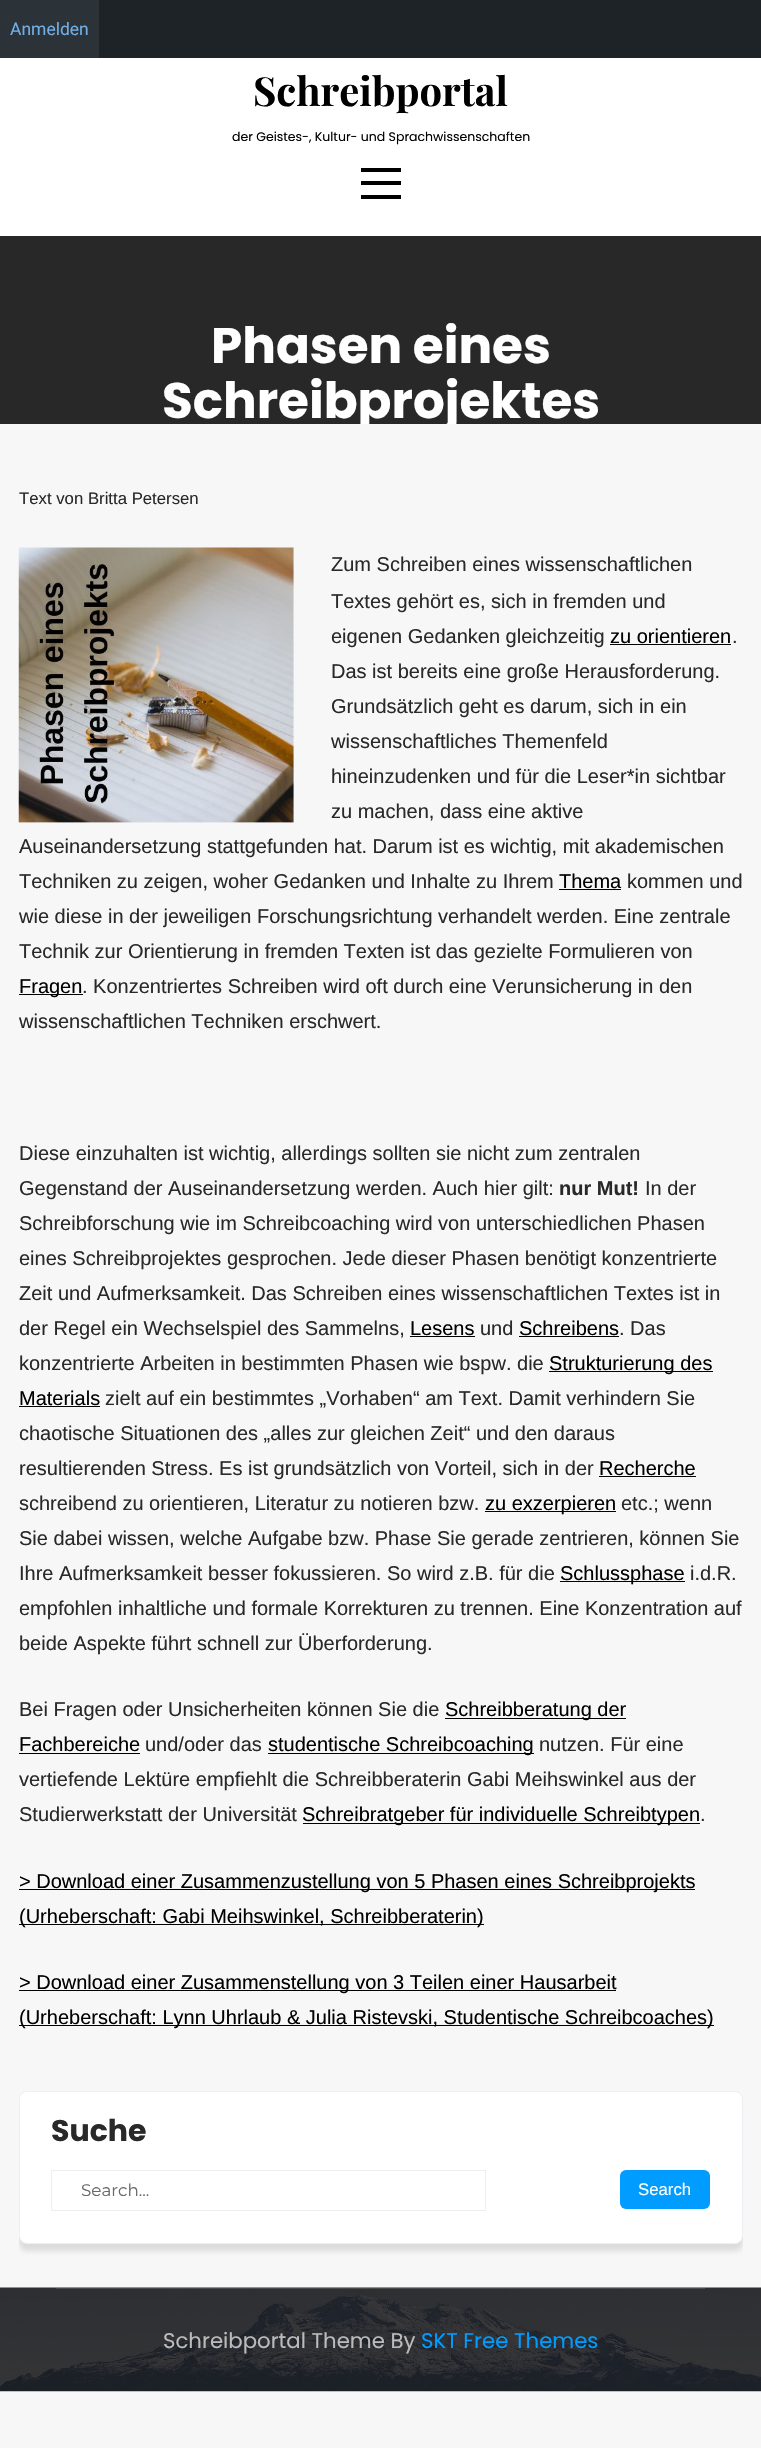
void draw(SkCanvas* c) {
SkPaint p;
p.setAntiAlias(true);
auto F=[&](const char* family, int weight, float size, bool italic = false){SkFontStyle style(weight, SkFontStyle::kNormal_Width,italic ? SkFontStyle::kItalic_Slant : SkFontStyle::kUpright_Slant);SkFont result(fontMgr->matchFamilyStyle(family, style), size);result.setSubpixel(true);return result;};
auto T=[&](const char* s, float x, float y, const SkFont& font){c->drawString(s, x, y, font, p);};
auto R=[&](float x, float y, float w, float h){c->drawRect(SkRect::MakeXYWH(x, y, w, h), p);};
auto Q=[&](float x, float y, float w, float h, float radius){c->drawRoundRect(SkRect::MakeXYWH(x, y, w, h), radius, radius, p);};
auto I=[&](const char* path, float x, float y, float w, float h){auto image = SkImages::DeferredFromEncodedData(SkData::MakeFromFileName(path));c->drawImageRect(image, SkRect::MakeXYWH(x, y, w, h), SkSamplingOptions());};
c->clear(0xfff7f7f7);
p.setColor(0xff1d2327);
R(99,0,662,58);
p.setColor(0xff2c3338);
R(0,0,99,58);
auto f1 = F("Roboto",400,17.5);
p.setColor(0xff72aee6);
T("Anmelden",10,35,f1);
p.setColor(0xffffffff);
R(0,58,761,178);
auto f2 = F("Playfair Display",700,40);
p.setColor(0xff000000);
T("Schreibportal",253,106,f2);
auto f3 = F("Poppins",400,12.5);
T("der Geistes-, Kultur- und Sprachwissenschaften",232,141,f3);
R(361,168,40,4);
R(361,181,40,4);
R(361,195,40,4);
p.setColor(0xff282828);
R(0,236,761,188);
auto f4 = F("Poppins",700,50);
p.setColor(0xffffffff);
T("Phasen eines",211,363,f4);
c->save();
c->clipRect(SkRect::MakeXYWH(0,236,761,188));
T("Schreibprojektes",162,418,f4);
c->restore();
auto f5 = F("Liberation Sans",400,16.75);
p.setColor(0xff292929);
T("Text von Britta Petersen",19,504,f5);
I("1.png",18,547,276,276);
auto f6 = F("Liberation Sans",400,20);
T("Zum Schreiben eines wissenschaftlichen",331,571,f6);
T("Textes gehört es, sich in fremden und",331,608,f6);
T("eigenen Gedanken gleichzeitig",331,643,f6);
p.setColor(0xff000000);
T("zu orientieren",610,643,f6);
R(610,644,121,1);
p.setColor(0xff292929);
T(".",732,643,f6);
T("Das ist bereits eine große Herausforderung.",331,678,f6);
T("Grundsätzlich geht es darum, sich in ein",331,713,f6);
T("wissenschaftliches Themenfeld",331,748,f6);
T("hineinzudenken und für die Leser*in sichtbar",331,783,f6);
T("zu machen, dass eine aktive",331,818,f6);
T("Auseinandersetzung stattgefunden hat. Darum ist es wichtig, mit akademischen",19,853,f6);
T("Techniken zu zeigen, woher Gedanken und Inhalte zu Ihrem",19,888,f6);
p.setColor(0xff000000);
T("Thema",559,888,f6);
R(559,889,62,1);
p.setColor(0xff292929);
T("kommen und",627,888,f6);
T("wie diese in der jeweiligen Forschungsrichtung verhandelt werden. Eine zentrale",19,923,f6);
T("Technik zur Orientierung in fremden Texten ist das gezielte Formulieren von",19,958,f6);
p.setColor(0xff000000);
R(19,994,64,1);
T("Fragen",19,993,f6);
p.setColor(0xff292929);
T(". Konzentriertes Schreiben wird oft durch eine Verunsicherung in den",82,993,f6);
T("wissenschaftlichen Techniken erschwert.",19,1028,f6);
T("Diese einzuhalten ist wichtig, allerdings sollten sie nicht zum zentralen",19,1160,f6);
T("Gegenstand der Auseinandersetzung werden. Auch hier gilt:",19,1195,f6);
auto f7 = F("Liberation Sans",700,20);
T("nur Mut!",559,1195,f7);
T("In der",645,1195,f6);
T("Schreibforschung wie im Schreibcoaching wird von unterschiedlichen Phasen",19,1230,f6);
T("eines Schreibprojektes gesprochen. Jede dieser Phasen benötigt konzentrierte",19,1265,f6);
T("Zeit und Aufmerksamkeit. Das Schreiben eines wissenschaftlichen Textes ist in",19,1300,f6);
T("der Regel ein Wechselspiel des Sammelns,",19,1335,f6);
p.setColor(0xff000000);
T("Lesens",410,1335,f6);
R(410,1336,65,1);
p.setColor(0xff292929);
T("und",480,1335,f6);
p.setColor(0xff000000);
T("Schreibens",519,1335,f6);
R(519,1336,100,1);
p.setColor(0xff292929);
T(". Das",619,1335,f6);
T("konzentrierte Arbeiten in bestimmten Phasen wie bspw. die",19,1370,f6);
p.setColor(0xff000000);
R(549,1371,164,1);
T("Strukturierung des",549,1370,f6);
T("Materials",19,1405,f6);
R(19,1406,81,1);
p.setColor(0xff292929);
T("zielt auf ein bestimmtes „Vorhaben“ am Text. Damit verhindern Sie",105,1405,f6);
T("chaotische Situationen des „alles zur gleichen Zeit“ und den daraus",19,1440,f6);
T("resultierenden Stress. Es ist grundsätzlich von Vorteil, sich in der",19,1475,f6);
p.setColor(0xff000000);
T("Recherche",599,1475,f6);
R(599,1476,97,1);
p.setColor(0xff292929);
T("schreibend zu orientieren, Literatur zu notieren bzw.",19,1510,f6);
p.setColor(0xff000000);
R(485,1511,131,1);
T("zu exzerpieren",485,1510,f6);
p.setColor(0xff292929);
T("etc.; wenn",621,1510,f6);
T("Sie dabei wissen, welche Aufgabe bzw. Phase Sie gerade zentrieren, können Sie",19,1545,f6);
T("Ihre Aufmerksamkeit besser fokussieren. So wird z.B. für die",19,1580,f6);
p.setColor(0xff000000);
R(560,1581,125,1);
T("Schlussphase",560,1580,f6);
p.setColor(0xff292929);
T("i.d.R.",690,1580,f6);
T("empfohlen inhaltliche und formale Korrekturen zu trennen. Eine Konzentration auf",19,1615,f6);
T("beide Aspekte führt schnell zur Überforderung.",19,1650,f6);
T("Bei Fragen oder Unsicherheiten können Sie die",19,1716,f6);
p.setColor(0xff000000);
R(445,1718,181,1);
T("Schreibberatung der",445,1716,f6);
T("Fachbereiche",19,1751,f6);
R(19,1753,121,1);
p.setColor(0xff292929);
T("und/oder das",145,1751,f6);
p.setColor(0xff000000);
R(268,1753,266,1);
T("studentische Schreibcoaching",268,1751,f6);
p.setColor(0xff292929);
T("nutzen. Für eine",539,1751,f6);
T("vertiefende Lektüre empfiehlt die Schreibberaterin Gabi Meihswinkel aus der",19,1786,f6);
T("Studierwerkstatt der Universität",19,1821,f6);
p.setColor(0xff000000);
R(303,1823,397,1);
T("Schreibratgeber für individuelle Schreibtypen",302,1821,f6);
p.setColor(0xff292929);
T(".",700,1821,f6);
p.setColor(0xff000000);
R(19,1889,676,1);
T("> Download einer Zusammenzustellung von 5 Phasen eines Schreibprojekts",19,1888,f6);
R(19,1924,465,1);
T("(Urheberschaft: Gabi Meihswinkel, Schreibberaterin)",19,1923,f6);
R(19,1990,597,1);
T("> Download einer Zusammenstellung von 3 Teilen einer Hausarbeit",19,1989,f6);
R(19,2025,695,1);
T("(Urheberschaft: Lynn Uhrlaub & Julia Ristevski, Studentische Schreibcoaches)",19,2024,f6);
c->save();
c->clipRect(SkRect::MakeXYWH(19,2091,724,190));
p.setColor(0xffdcdcdc);
p.setMaskFilter(SkMaskFilter::MakeBlur(kNormal_SkBlurStyle, 2.5));
c->drawRoundRect(SkRect::MakeXYWH(19,2099,724,152),8,8,p);
p.setMaskFilter(nullptr);
c->restore();
p.setColor(0xffffffff);
c->drawRoundRect(SkRect::MakeXYWH(19.5,2091.5,723,152),7.5,7.5,p);
p.setStroke(true);
p.setStrokeWidth(1);
p.setColor(0xffeeeff5);
c->drawRoundRect(SkRect::MakeXYWH(19.5,2091.5,723,152),7.5,7.5,p);
auto f8 = F("Poppins",700,30);
p.setStroke(false);
p.setColor(0xff292929);
T("Suche",51,2141,f8);
p.setStroke(true);
p.setColor(0xffeeeeee);
c->drawRect(SkRect::MakeXYWH(51.5,2170.5,434,40),p);
auto f9 = F("Montserrat",400,16.75);
p.setStroke(false);
p.setColor(0xff686868);
T("Search...",81,2196,f9);
p.setColor(0xff009cff);
Q(620,2170,90,39,6);
p.setColor(0xffffffff);
T("Search",638,2195,f5);
I("2.png",0,2287,761,105);
p.setColor(0xff4a4a4a);
R(56,2288,649,1);
auto f10 = F("Poppins",400,21.25);
p.setColor(0xffbcbbbb);
T("Schreibportal Theme By",163,2348,f10);
p.setColor(0xff009cff);
T("SKT Free Themes",421,2348,f10);
}
